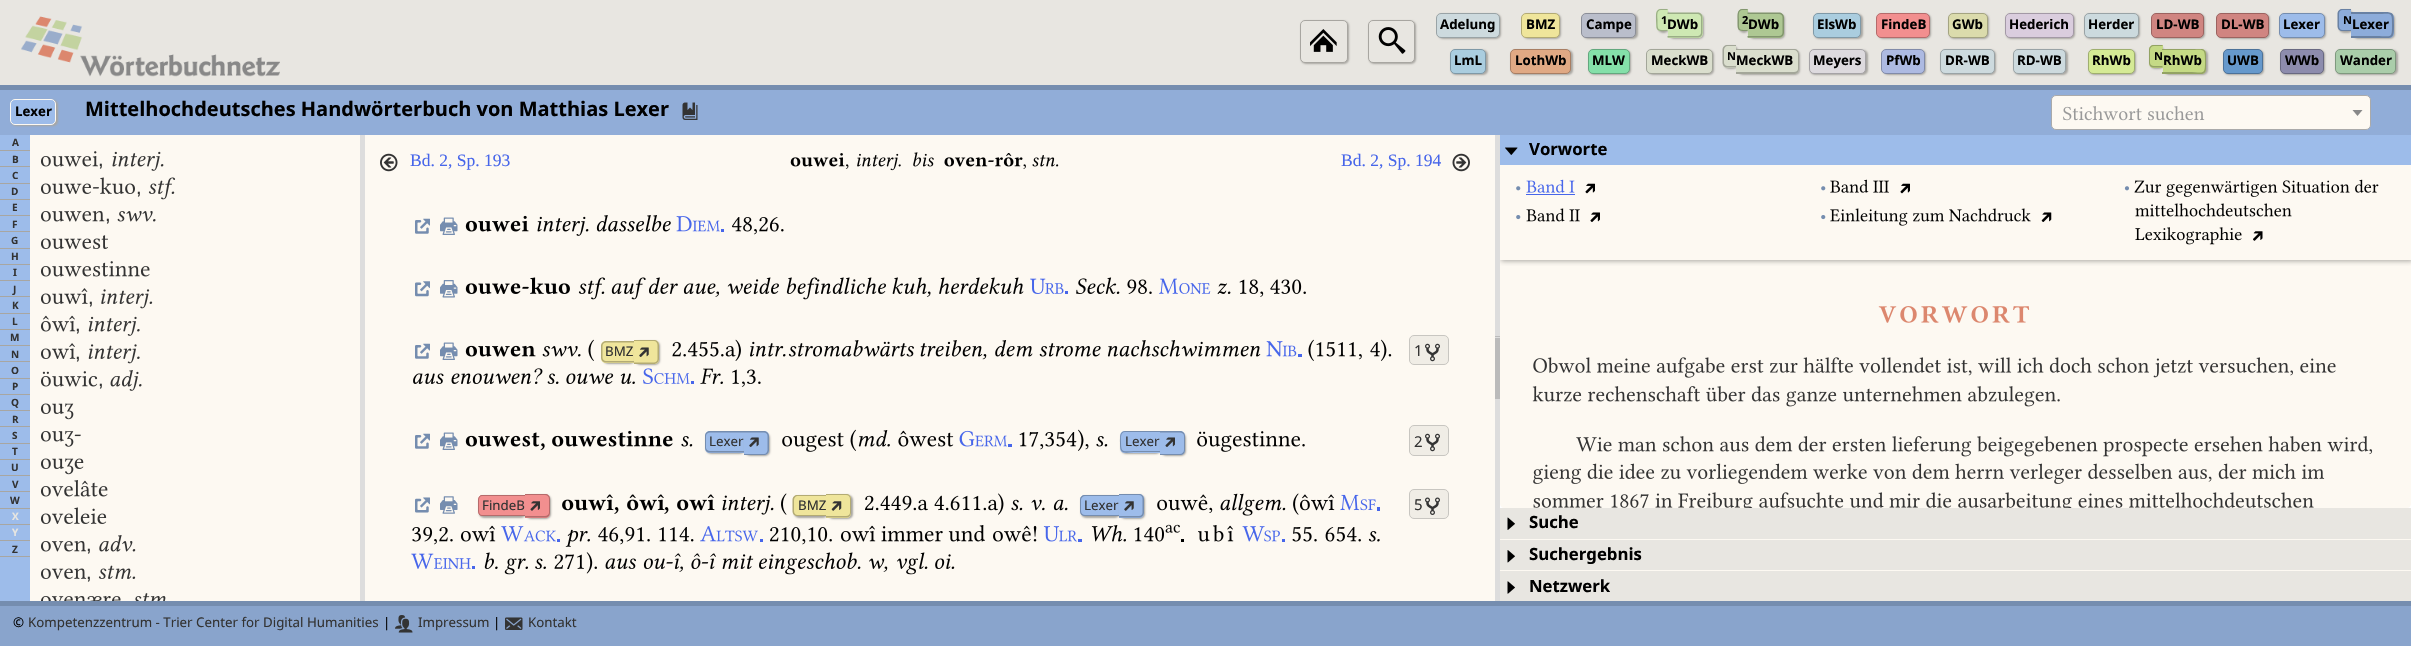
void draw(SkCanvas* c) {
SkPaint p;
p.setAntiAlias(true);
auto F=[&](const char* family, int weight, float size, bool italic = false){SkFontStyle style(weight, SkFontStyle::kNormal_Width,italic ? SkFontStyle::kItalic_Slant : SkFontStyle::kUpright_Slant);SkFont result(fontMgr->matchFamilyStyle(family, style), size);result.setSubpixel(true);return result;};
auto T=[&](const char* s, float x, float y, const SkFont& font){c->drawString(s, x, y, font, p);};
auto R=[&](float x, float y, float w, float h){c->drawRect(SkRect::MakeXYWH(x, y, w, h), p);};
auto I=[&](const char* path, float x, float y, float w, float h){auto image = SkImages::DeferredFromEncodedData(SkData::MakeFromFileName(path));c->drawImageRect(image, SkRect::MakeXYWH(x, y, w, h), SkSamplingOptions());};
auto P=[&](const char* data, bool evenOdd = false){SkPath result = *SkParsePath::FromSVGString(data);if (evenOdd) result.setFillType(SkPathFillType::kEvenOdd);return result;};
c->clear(0xff758daf);
p.setColor(0xffe8e6e1);
R(0,0,2411,85);
I("1.png",21,16,259,61);
p.setColor(0xffa8a6a1);
p.setMaskFilter(SkMaskFilter::MakeBlur(kNormal_SkBlurStyle, 1));
c->drawRoundRect(SkRect::MakeXYWH(1301,21,48,43),5,5,p);
p.setMaskFilter(nullptr);
p.setColor(0xffe8e6e1);
c->drawRoundRect(SkRect::MakeXYWH(1300.5,20.5,47,42),4.5,4.5,p);
p.setStroke(true);
p.setStrokeWidth(1);
p.setColor(0xffa8a6a1);
c->drawRoundRect(SkRect::MakeXYWH(1300.5,20.5,47,42),4.5,4.5,p);
I("2.png",1310,29,27,23);
p.setStroke(false);
p.setMaskFilter(SkMaskFilter::MakeBlur(kNormal_SkBlurStyle, 1));
c->drawRoundRect(SkRect::MakeXYWH(1369,21,47,43),5,5,p);
p.setMaskFilter(nullptr);
p.setColor(0xffe8e6e1);
c->drawRoundRect(SkRect::MakeXYWH(1368.5,20.5,46,42),4.5,4.5,p);
p.setStroke(true);
p.setColor(0xffa8a6a1);
c->drawRoundRect(SkRect::MakeXYWH(1368.5,20.5,46,42),4.5,4.5,p);
I("3.png",1378,27,28,27);
p.setStroke(false);
p.setMaskFilter(SkMaskFilter::MakeBlur(kNormal_SkBlurStyle, 1));
c->drawRoundRect(SkRect::MakeXYWH(1438,14,63,25),5,5,p);
p.setMaskFilter(nullptr);
p.setColor(0xffcddade);
c->drawRoundRect(SkRect::MakeXYWH(1436.5,13.5,63,24),4.5,4.5,p);
p.setStroke(true);
p.setColor(0xff99a3a6);
c->drawRoundRect(SkRect::MakeXYWH(1436.5,13.5,63,24),4.5,4.5,p);
auto f1 = F("Noto Sans",700,13.3);
p.setStroke(false);
p.setColor(0xff000000);
T("Adelung",1440,29,f1);
p.setColor(0xffa8a6a1);
p.setMaskFilter(SkMaskFilter::MakeBlur(kNormal_SkBlurStyle, 1));
c->drawRoundRect(SkRect::MakeXYWH(1523,14,38,25),5,5,p);
p.setMaskFilter(nullptr);
p.setColor(0xffefe59b);
c->drawRoundRect(SkRect::MakeXYWH(1521.5,13.5,38,24),4.5,4.5,p);
p.setStroke(true);
p.setColor(0xffb3ab74);
c->drawRoundRect(SkRect::MakeXYWH(1521.5,13.5,38,24),4.5,4.5,p);
p.setStroke(false);
p.setColor(0xff000000);
T("BMZ",1526,29,f1);
p.setColor(0xffa8a6a1);
p.setMaskFilter(SkMaskFilter::MakeBlur(kNormal_SkBlurStyle, 1));
c->drawRoundRect(SkRect::MakeXYWH(1583,14,55,25),5,5,p);
p.setMaskFilter(nullptr);
p.setColor(0xffbabecb);
c->drawRoundRect(SkRect::MakeXYWH(1581.5,13.5,54,24),4.5,4.5,p);
p.setStroke(true);
p.setColor(0xff8b8e98);
c->drawRoundRect(SkRect::MakeXYWH(1581.5,13.5,54,24),4.5,4.5,p);
p.setStroke(false);
p.setColor(0xff000000);
T("Campe",1586,29,f1);
p.setColor(0xffa8a6a1);
p.setMaskFilter(SkMaskFilter::MakeBlur(kNormal_SkBlurStyle, 1));
c->drawRoundRect(SkRect::MakeXYWH(1658,10,11,23),5,5,p);
p.setMaskFilter(nullptr);
p.setColor(0xffcee8b3);
c->drawPath(P("M1661 9h7v22h-7c-3 0-5-2-5-5v-12c0-3 2-5 5-5z"),p);
p.setColor(0xff9aae86);
c->drawPath(P("M1661 9h6.5v22c-4 0-10 1.5-11-3.5l-.5-7.5c0-4-1-11 5-11zm0 1h6.5v20c-10 0-10 1-10-10c0-3-1.5-10 3.5-10z",true),p);
p.setColor(0xffa8a6a1);
p.setMaskFilter(SkMaskFilter::MakeBlur(kNormal_SkBlurStyle, 1));
c->drawRoundRect(SkRect::MakeXYWH(1669,14,35,25),5,5,p);
p.setMaskFilter(nullptr);
auto f2 = F("Noto Sans",700,11);
p.setColor(0xff000000);
T("1",1661,24,f2);
p.setColor(0xffcee8b3);
c->drawPath(P("M1668 13h30c3 0 5 2 5 5v15c0 3-2 5-5 5h-30z"),p);
p.setColor(0xff9aae86);
c->drawPath(P("M1667.5 12.5h30c3 0 5 2 5 5v15c0 3-2 5-5 5h-30zm0 1.5h30c2 0 3.5 1.5 3.5 3.5v15c0 2-1.5 3.5-3.5 3.5h-30z",true),p);
p.setColor(0xff000000);
T("DWb",1667,29,f1);
p.setColor(0xffa8a6a1);
p.setMaskFilter(SkMaskFilter::MakeBlur(kNormal_SkBlurStyle, 1));
c->drawRoundRect(SkRect::MakeXYWH(1739,10,10,23),5,5,p);
p.setMaskFilter(nullptr);
p.setColor(0xffaec893);
c->drawPath(P("M1743 9h5v22h-5c-3 0-5-2-5-5v-12c0-3 2-5 5-5z"),p);
p.setColor(0xff82966e);
c->drawPath(P("M1742.5 9h5v22c-10.5 0-10-.5-10-11c0-4-1-11 5-11zm0 1h5v20c-9.5 0-8.5 0-8.5-10c0-3-1.5-10 3.5-10z",true),p);
p.setColor(0xffa8a6a1);
p.setMaskFilter(SkMaskFilter::MakeBlur(kNormal_SkBlurStyle, 1));
c->drawRoundRect(SkRect::MakeXYWH(1749,14,36,25),5,5,p);
p.setMaskFilter(nullptr);
p.setColor(0xffaec893);
c->drawPath(P("M1748 13h31c3 0 5 2 5 5v15c0 3-2 5-5 5h-31z"),p);
p.setColor(0xff82966e);
c->drawPath(P("M1747.5 12.5h31.5c2.5 0 5 2 5 5v15c0 3-2.5 5-5 5h-31.5zm0 1.5h31.5c2 0 3.5 1.5 3.5 3.5v15c0 2-1.5 3.5-3.5 3.5h-31.5z",true),p);
p.setColor(0xff000000);
T("2",1742,24,f2);
T("DWb",1748,29,f1);
p.setColor(0xffa8a6a1);
p.setMaskFilter(SkMaskFilter::MakeBlur(kNormal_SkBlurStyle, 1));
c->drawRoundRect(SkRect::MakeXYWH(1814,14,49,25),5,5,p);
p.setMaskFilter(nullptr);
p.setColor(0xffaacddf);
c->drawRoundRect(SkRect::MakeXYWH(1813.5,13.5,47,24),4.5,4.5,p);
p.setStroke(true);
p.setColor(0xff7f99a7);
c->drawRoundRect(SkRect::MakeXYWH(1813.5,13.5,47,24),4.5,4.5,p);
p.setStroke(false);
p.setColor(0xff000000);
T("ElsWb",1817,29,f1);
p.setColor(0xffa8a6a1);
p.setMaskFilter(SkMaskFilter::MakeBlur(kNormal_SkBlurStyle, 1));
c->drawRoundRect(SkRect::MakeXYWH(1878,14,53,25),5,5,p);
p.setMaskFilter(nullptr);
p.setColor(0xfff28f8f);
c->drawRoundRect(SkRect::MakeXYWH(1876.5,13.5,53,24),4.5,4.5,p);
p.setStroke(true);
p.setColor(0xffb56b6b);
c->drawRoundRect(SkRect::MakeXYWH(1876.5,13.5,53,24),4.5,4.5,p);
p.setStroke(false);
p.setColor(0xff000000);
T("FindeB",1881,29,f1);
p.setColor(0xffa8a6a1);
p.setMaskFilter(SkMaskFilter::MakeBlur(kNormal_SkBlurStyle, 1));
c->drawRoundRect(SkRect::MakeXYWH(1949,14,40,25),5,5,p);
p.setMaskFilter(nullptr);
p.setColor(0xffdbdbac);
c->drawRoundRect(SkRect::MakeXYWH(1948.5,13.5,39,24),4.5,4.5,p);
p.setStroke(true);
p.setColor(0xffa4a481);
c->drawRoundRect(SkRect::MakeXYWH(1948.5,13.5,39,24),4.5,4.5,p);
p.setStroke(false);
p.setColor(0xff000000);
T("GWb",1952,29,f1);
p.setColor(0xffa8a6a1);
p.setMaskFilter(SkMaskFilter::MakeBlur(kNormal_SkBlurStyle, 1));
c->drawRoundRect(SkRect::MakeXYWH(2006,14,69,25),5,5,p);
p.setMaskFilter(nullptr);
p.setColor(0xffdacdde);
c->drawRoundRect(SkRect::MakeXYWH(2005.5,13.5,68,24),4.5,4.5,p);
p.setStroke(true);
p.setColor(0xffa399a6);
c->drawRoundRect(SkRect::MakeXYWH(2005.5,13.5,68,24),4.5,4.5,p);
p.setStroke(false);
p.setColor(0xff000000);
T("Hederich",2009,29,f1);
p.setColor(0xffa8a6a1);
p.setMaskFilter(SkMaskFilter::MakeBlur(kNormal_SkBlurStyle, 1));
c->drawRoundRect(SkRect::MakeXYWH(2085,14,55,25),5,5,p);
p.setMaskFilter(nullptr);
p.setColor(0xffccdade);
c->drawRoundRect(SkRect::MakeXYWH(2084.5,13.5,54,24),4.5,4.5,p);
p.setStroke(true);
p.setColor(0xff99a3a6);
c->drawRoundRect(SkRect::MakeXYWH(2084.5,13.5,54,24),4.5,4.5,p);
p.setStroke(false);
p.setColor(0xff000000);
T("Herder",2088,29,f1);
p.setColor(0xffa8a6a1);
p.setMaskFilter(SkMaskFilter::MakeBlur(kNormal_SkBlurStyle, 1));
c->drawRoundRect(SkRect::MakeXYWH(2153,14,52,25),5,5,p);
p.setMaskFilter(nullptr);
p.setColor(0xffd08581);
c->drawRoundRect(SkRect::MakeXYWH(2151.5,13.5,52,24),4.5,4.5,p);
p.setStroke(true);
p.setColor(0xff9c6360);
c->drawRoundRect(SkRect::MakeXYWH(2151.5,13.5,52,24),4.5,4.5,p);
p.setStroke(false);
p.setColor(0xff000000);
T("LD-WB",2156,29,f1);
p.setColor(0xffa8a6a1);
p.setMaskFilter(SkMaskFilter::MakeBlur(kNormal_SkBlurStyle, 1));
c->drawRoundRect(SkRect::MakeXYWH(2218,14,52,25),5,5,p);
p.setMaskFilter(nullptr);
p.setColor(0xffd08581);
c->drawRoundRect(SkRect::MakeXYWH(2216.5,13.5,52,24),4.5,4.5,p);
p.setStroke(true);
p.setColor(0xff9c6360);
c->drawRoundRect(SkRect::MakeXYWH(2216.5,13.5,52,24),4.5,4.5,p);
p.setStroke(false);
p.setColor(0xff000000);
T("DL-WB",2221,29,f1);
p.setColor(0xffa8a6a1);
p.setMaskFilter(SkMaskFilter::MakeBlur(kNormal_SkBlurStyle, 1));
c->drawRoundRect(SkRect::MakeXYWH(2280,14,46,25),5,5,p);
p.setMaskFilter(nullptr);
p.setColor(0xff9dbcea);
c->drawRoundRect(SkRect::MakeXYWH(2279.5,13.5,45,24),4.5,4.5,p);
p.setStroke(true);
p.setColor(0xff758daf);
c->drawRoundRect(SkRect::MakeXYWH(2279.5,13.5,45,24),4.5,4.5,p);
p.setStroke(false);
p.setColor(0xff000000);
T("Lexer",2283,29,f1);
p.setColor(0xffa8a6a1);
p.setMaskFilter(SkMaskFilter::MakeBlur(kNormal_SkBlurStyle, 1));
c->drawRoundRect(SkRect::MakeXYWH(2339,10,14,23),5,5,p);
p.setMaskFilter(nullptr);
p.setColor(0xff8dacda);
c->drawPath(P("M2343 9h8v22h-8c-3 0-5-2-5-5v-12c0-3 2-5 5-5z"),p);
p.setColor(0xff6981a3);
c->drawPath(P("M2342.5 9h8.5v22h-8.5c-3 0-5-2-5-5v-12c0-3 2-5 5-5zm0 1h8.5v20h-8.5c-2 0-3.5-1.5-3.5-4v-12c0-2.5 1.5-4 3.5-4z",true),p);
p.setColor(0xffa8a6a1);
p.setMaskFilter(SkMaskFilter::MakeBlur(kNormal_SkBlurStyle, 1));
c->drawRoundRect(SkRect::MakeXYWH(2353,14,42,25),5,5,p);
p.setMaskFilter(nullptr);
p.setColor(0xff000000);
T("N",2343,24,f2);
p.setColor(0xff8dacda);
c->drawPath(P("M2351 13h38c3 0 5 2 5 5v15c0 3-2 5-5 5h-38z"),p);
p.setColor(0xff6981a3);
c->drawPath(P("M2351 12h25c17 0 18-2 18 13c0 15-1 13-18 13h-25zm0 2h25c16 0 16-3 16 11c0 14 0 11-16 11h-25z",true),p);
p.setColor(0xff000000);
T("Lexer",2352,29,f1);
p.setColor(0xffa8a6a1);
p.setMaskFilter(SkMaskFilter::MakeBlur(kNormal_SkBlurStyle, 1));
c->drawRoundRect(SkRect::MakeXYWH(1451,50,37,25),5,5,p);
p.setMaskFilter(nullptr);
p.setColor(0xffaacddf);
c->drawRoundRect(SkRect::MakeXYWH(1450.5,49.5,35,24),4.5,4.5,p);
p.setStroke(true);
p.setColor(0xff7f99a7);
c->drawRoundRect(SkRect::MakeXYWH(1450.5,49.5,35,24),4.5,4.5,p);
p.setStroke(false);
p.setColor(0xff000000);
T("LmL",1454,65,f1);
p.setColor(0xffa8a6a1);
p.setMaskFilter(SkMaskFilter::MakeBlur(kNormal_SkBlurStyle, 1));
c->drawRoundRect(SkRect::MakeXYWH(1511,50,62,25),5,5,p);
p.setMaskFilter(nullptr);
p.setColor(0xffe0a984);
c->drawRoundRect(SkRect::MakeXYWH(1510.5,49.5,60,24),4.5,4.5,p);
p.setStroke(true);
p.setColor(0xffa87e63);
c->drawRoundRect(SkRect::MakeXYWH(1510.5,49.5,60,24),4.5,4.5,p);
p.setStroke(false);
p.setColor(0xff000000);
T("LothWb",1515,65,f1);
p.setColor(0xffa8a6a1);
p.setMaskFilter(SkMaskFilter::MakeBlur(kNormal_SkBlurStyle, 1));
c->drawRoundRect(SkRect::MakeXYWH(1589,50,42,25),5,5,p);
p.setMaskFilter(nullptr);
p.setColor(0xff84e0a9);
c->drawRoundRect(SkRect::MakeXYWH(1588.5,49.5,41,24),4.5,4.5,p);
p.setStroke(true);
p.setColor(0xff63a87e);
c->drawRoundRect(SkRect::MakeXYWH(1588.5,49.5,41,24),4.5,4.5,p);
p.setStroke(false);
p.setColor(0xff000000);
T("MLW",1592,65,f1);
p.setColor(0xffa8a6a1);
p.setMaskFilter(SkMaskFilter::MakeBlur(kNormal_SkBlurStyle, 1));
c->drawRoundRect(SkRect::MakeXYWH(1648,50,66,25),5,5,p);
p.setMaskFilter(nullptr);
p.setColor(0xffdadecd);
c->drawRoundRect(SkRect::MakeXYWH(1646.5,49.5,66,24),4.5,4.5,p);
p.setStroke(true);
p.setColor(0xffa3a699);
c->drawRoundRect(SkRect::MakeXYWH(1646.5,49.5,66,24),4.5,4.5,p);
p.setStroke(false);
p.setColor(0xff000000);
T("MeckWB",1651,65,f1);
p.setColor(0xffa8a6a1);
p.setMaskFilter(SkMaskFilter::MakeBlur(kNormal_SkBlurStyle, 1));
c->drawRoundRect(SkRect::MakeXYWH(1724,46,14,23),5,5,p);
p.setMaskFilter(nullptr);
p.setColor(0xffdadecd);
c->drawPath(P("M1728 45h8v23h-8c-3 0-5-2-5-5v-13c0-3 2-5 5-5z"),p);
p.setColor(0xffa3a699);
c->drawPath(P("M1727.5 45h8.5v22.5h-8.5c-3 0-5-2-5-5v-12.5c0-3 2-5 5-5zm0 1h8.5v20h-8.5c-2 0-3.5-1.5-3.5-3.5v-12.5c0-2 1.5-4 3.5-4z",true),p);
p.setColor(0xffa8a6a1);
p.setMaskFilter(SkMaskFilter::MakeBlur(kNormal_SkBlurStyle, 1));
c->drawRoundRect(SkRect::MakeXYWH(1738,50,62,25),5,5,p);
p.setMaskFilter(nullptr);
p.setColor(0xff000000);
T("N",1727,60,f2);
p.setColor(0xffdadecd);
c->drawPath(P("M1736 49h58c3 0 5 2 5 5v15c0 3-2 5-5 5h-58z"),p);
p.setColor(0xffa3a699);
c->drawPath(P("M1736 49h58c3 0 5 2 5 5v15c0 3-2 5-5 5h-58zm0 1h58c2 0 4 2 4 4v15c0 2-2 3-4 3h-58z",true),p);
p.setColor(0xff000000);
T("MeckWB",1736,65,f1);
p.setColor(0xffa8a6a1);
p.setMaskFilter(SkMaskFilter::MakeBlur(kNormal_SkBlurStyle, 1));
c->drawRoundRect(SkRect::MakeXYWH(1810,50,58,25),5,5,p);
p.setMaskFilter(nullptr);
p.setColor(0xffdddade);
c->drawRoundRect(SkRect::MakeXYWH(1809.5,49.5,56,24),4.5,4.5,p);
p.setStroke(true);
p.setColor(0xffa5a3a6);
c->drawRoundRect(SkRect::MakeXYWH(1809.5,49.5,56,24),4.5,4.5,p);
p.setStroke(false);
p.setColor(0xff000000);
T("Meyers",1813,65,f1);
p.setColor(0xffa8a6a1);
p.setMaskFilter(SkMaskFilter::MakeBlur(kNormal_SkBlurStyle, 1));
c->drawRoundRect(SkRect::MakeXYWH(1883,50,43,25),5,5,p);
p.setMaskFilter(nullptr);
p.setColor(0xffadbae2);
c->drawRoundRect(SkRect::MakeXYWH(1881.5,49.5,43,24),4.5,4.5,p);
p.setStroke(true);
p.setColor(0xff818ba9);
c->drawRoundRect(SkRect::MakeXYWH(1881.5,49.5,43,24),4.5,4.5,p);
p.setStroke(false);
p.setColor(0xff000000);
T("PfWb",1886,65,f1);
p.setColor(0xffa8a6a1);
p.setMaskFilter(SkMaskFilter::MakeBlur(kNormal_SkBlurStyle, 1));
c->drawRoundRect(SkRect::MakeXYWH(1941,50,55,25),5,5,p);
p.setMaskFilter(nullptr);
p.setColor(0xffcddade);
c->drawRoundRect(SkRect::MakeXYWH(1940.5,49.5,54,24),4.5,4.5,p);
p.setStroke(true);
p.setColor(0xff99a3a6);
c->drawRoundRect(SkRect::MakeXYWH(1940.5,49.5,54,24),4.5,4.5,p);
p.setStroke(false);
p.setColor(0xff000000);
T("DR-WB",1945,65,f1);
p.setColor(0xffa8a6a1);
p.setMaskFilter(SkMaskFilter::MakeBlur(kNormal_SkBlurStyle, 1));
c->drawRoundRect(SkRect::MakeXYWH(2014,50,54,25),5,5,p);
p.setMaskFilter(nullptr);
p.setColor(0xffcddade);
c->drawRoundRect(SkRect::MakeXYWH(2013.5,49.5,52,24),4.5,4.5,p);
p.setStroke(true);
p.setColor(0xff99a3a6);
c->drawRoundRect(SkRect::MakeXYWH(2013.5,49.5,52,24),4.5,4.5,p);
p.setStroke(false);
p.setColor(0xff000000);
T("RD-WB",2017,65,f1);
p.setColor(0xffa8a6a1);
p.setMaskFilter(SkMaskFilter::MakeBlur(kNormal_SkBlurStyle, 1));
c->drawRoundRect(SkRect::MakeXYWH(2089,50,47,25),5,5,p);
p.setMaskFilter(nullptr);
p.setColor(0xffd5ea95);
c->drawRoundRect(SkRect::MakeXYWH(2088.5,49.5,46,24),4.5,4.5,p);
p.setStroke(true);
p.setColor(0xff9faf6f);
c->drawRoundRect(SkRect::MakeXYWH(2088.5,49.5,46,24),4.5,4.5,p);
p.setStroke(false);
p.setColor(0xff000000);
T("RhWb",2092,65,f1);
p.setColor(0xffa8a6a1);
p.setMaskFilter(SkMaskFilter::MakeBlur(kNormal_SkBlurStyle, 1));
c->drawRoundRect(SkRect::MakeXYWH(2150,46,14,23),5,5,p);
p.setMaskFilter(nullptr);
p.setColor(0xffc5da85);
c->drawPath(P("M2154 45h9v23h-9c-3 0-5-2-5-5v-13c0-3 2-5 5-5z"),p);
p.setColor(0xff93a363);
c->drawPath(P("M2154 45h8.5v22.5h-8.5c-3 0-5-2-5-5v-12.5c0-3 2-5 5-5zm0 1h8.5v20h-8.5c-2.5 0-4-1.5-4-3.5v-12.5c0-2 1.5-4 4-4z",true),p);
p.setColor(0xffa8a6a1);
p.setMaskFilter(SkMaskFilter::MakeBlur(kNormal_SkBlurStyle, 1));
c->drawRoundRect(SkRect::MakeXYWH(2164,50,44,25),5,5,p);
p.setMaskFilter(nullptr);
p.setColor(0xff000000);
T("N",2154,60,f2);
p.setColor(0xffc5da85);
c->drawPath(P("M2163 49h38c3 0 5 2 5 5v15c0 3-2 5-5 5h-38z"),p);
p.setColor(0xff93a363);
c->drawPath(P("M2162 49h39c3 0 5 2 5 5v15c0 3-2 5-5 5h-39zm0 1h26c16 0 17-3 17 11c0 15-1 11-17 11h-26z",true),p);
p.setColor(0xff000000);
T("RhWb",2163,65,f1);
p.setColor(0xffa8a6a1);
p.setMaskFilter(SkMaskFilter::MakeBlur(kNormal_SkBlurStyle, 1));
c->drawRoundRect(SkRect::MakeXYWH(2224,50,40,25),5,5,p);
p.setMaskFilter(nullptr);
p.setColor(0xff6699cc);
c->drawRoundRect(SkRect::MakeXYWH(2223.5,49.5,39,24),4.5,4.5,p);
p.setStroke(true);
p.setColor(0xff4c7299);
c->drawRoundRect(SkRect::MakeXYWH(2223.5,49.5,39,24),4.5,4.5,p);
p.setStroke(false);
p.setColor(0xff000000);
T("UWB",2227,65,f1);
p.setColor(0xffa8a6a1);
p.setMaskFilter(SkMaskFilter::MakeBlur(kNormal_SkBlurStyle, 1));
c->drawRoundRect(SkRect::MakeXYWH(2281,50,44,25),5,5,p);
p.setMaskFilter(nullptr);
p.setColor(0xff8d8cad);
c->drawRoundRect(SkRect::MakeXYWH(2280.5,49.5,43,24),4.5,4.5,p);
p.setStroke(true);
p.setColor(0xff696981);
c->drawRoundRect(SkRect::MakeXYWH(2280.5,49.5,43,24),4.5,4.5,p);
p.setStroke(false);
p.setColor(0xff000000);
T("WWb",2285,65,f1);
p.setColor(0xffa8a6a1);
p.setMaskFilter(SkMaskFilter::MakeBlur(kNormal_SkBlurStyle, 1));
c->drawRoundRect(SkRect::MakeXYWH(2336,50,62,25),5,5,p);
p.setMaskFilter(nullptr);
p.setColor(0xffaacdaa);
c->drawRoundRect(SkRect::MakeXYWH(2335.5,49.5,60,24),4.5,4.5,p);
p.setStroke(true);
p.setColor(0xff7f997f);
c->drawRoundRect(SkRect::MakeXYWH(2335.5,49.5,60,24),4.5,4.5,p);
p.setStroke(false);
p.setColor(0xff000000);
T("Wander",2340,65,f1);
p.setColor(0xff91add8);
R(0,90,2411,45);
p.setColor(0xffa8a6a1);
p.setMaskFilter(SkMaskFilter::MakeBlur(kNormal_SkBlurStyle, 1));
c->drawRoundRect(SkRect::MakeXYWH(11,100,47,26),5,5,p);
p.setMaskFilter(nullptr);
p.setColor(0xff9dbcea);
c->drawRoundRect(SkRect::MakeXYWH(10.5,99.5,45,25),4.5,4.5,p);
p.setStroke(true);
p.setColor(0xfffdf9f2);
c->drawRoundRect(SkRect::MakeXYWH(10.5,99.5,45,25),4.5,4.5,p);
p.setStroke(false);
p.setColor(0xff000000);
T("Lexer",15,116,f1);
auto f3 = F("Noto Sans",700,20);
T("Mittelhochdeutsches Handwörterbuch von Matthias Lexer",85,116,f3);
I("4.png",682,102,16,18);
p.setColor(0xfffdf9f2);
c->drawRoundRect(SkRect::MakeXYWH(2051.5,95.5,319,34),4.5,4.5,p);
p.setStroke(true);
p.setColor(0xffaaaaaa);
c->drawRoundRect(SkRect::MakeXYWH(2051.5,95.5,319,34),4.5,4.5,p);
I("5.png",2063,106,142,15);
p.setStroke(false);
p.setColor(0xff888888);
c->drawPath(P("M2352.5 110h10l-5 6z"),p);
p.setColor(0xffdddddd);
R(360,135,5,466);
p.setColor(0xfffdf9f2);
R(365,135,1130,466);
p.setColor(0xffffffff);
R(1500,504,911,4);
p.setColor(0xfffdf9f2);
c->drawPath(P("M1500 165h911v339c0 2-2 4-4 4h-903c-2 0-4-2-4-4z"),p);
c->save();
c->clipRect(SkRect::MakeXYWH(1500,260,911,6));
p.setColor(0xffa8a6a1);
p.setMaskFilter(SkMaskFilter::MakeBlur(kNormal_SkBlurStyle, 2.5));
c->drawRect(SkRect::MakeXYWH(1501,166,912,95),p);
p.setMaskFilter(nullptr);
c->restore();
p.setColor(0xffdddddd);
R(1495,135,5,466);
p.setColor(0xffbbbbbb);
R(1495,338,5,61);
R(1495,336,5,1);
p.setColor(0xff9dbcea);
R(0,135,30,466);
p.setColor(0xffa8a6a1);
R(0,150,30,1);
auto f4 = F("Noto Sans",700,10);
p.setColor(0xff333333);
T("A",12,146,f4);
p.setColor(0xffa8a6a1);
R(0,166,30,1);
p.setColor(0xff333333);
T("B",12,163,f4);
p.setColor(0xffa8a6a1);
R(0,183,30,1);
p.setColor(0xff333333);
T("C",12,179,f4);
p.setColor(0xffa8a6a1);
R(0,199,30,1);
p.setColor(0xff333333);
T("D",11,195,f4);
p.setColor(0xffa8a6a1);
R(0,215,30,1);
p.setColor(0xff333333);
T("E",12,211,f4);
p.setColor(0xffa8a6a1);
R(0,231,30,1);
p.setColor(0xff333333);
T("F",12,228,f4);
p.setColor(0xffa8a6a1);
R(0,248,30,1);
p.setColor(0xff333333);
T("G",11,244,f4);
p.setColor(0xffa8a6a1);
R(0,264,30,1);
p.setColor(0xff333333);
T("H",11,260,f4);
p.setColor(0xffa8a6a1);
R(0,280,30,1);
p.setColor(0xff333333);
T("I",13,276,f4);
p.setColor(0xffa8a6a1);
R(0,296,30,1);
p.setColor(0xff333333);
T("J",13,293,f4);
p.setColor(0xffa8a6a1);
R(0,313,30,1);
p.setColor(0xff333333);
T("K",12,309,f4);
p.setColor(0xffa8a6a1);
R(0,329,30,1);
p.setColor(0xff333333);
T("L",12,325,f4);
p.setColor(0xffa8a6a1);
R(0,345,30,1);
p.setColor(0xff333333);
T("M",10,341,f4);
p.setColor(0xffa8a6a1);
R(0,361,30,1);
p.setColor(0xff333333);
T("N",11,358,f4);
p.setColor(0xffa8a6a1);
R(0,378,30,1);
p.setColor(0xff333333);
T("O",11,374,f4);
p.setColor(0xffa8a6a1);
R(0,394,30,1);
p.setColor(0xff333333);
T("P",12,390,f4);
p.setColor(0xffa8a6a1);
R(0,410,30,1);
p.setColor(0xff333333);
T("Q",11,406,f4);
p.setColor(0xffa8a6a1);
R(0,426,30,1);
p.setColor(0xff333333);
T("R",12,423,f4);
p.setColor(0xffa8a6a1);
R(0,443,30,1);
p.setColor(0xff333333);
T("S",12,439,f4);
p.setColor(0xffa8a6a1);
R(0,459,30,1);
p.setColor(0xff333333);
T("T",12,455,f4);
p.setColor(0xffa8a6a1);
R(0,475,30,1);
p.setColor(0xff333333);
T("U",11,471,f4);
p.setColor(0xffa8a6a1);
R(0,491,30,1);
p.setColor(0xff333333);
T("V",12,488,f4);
p.setColor(0xffa8a6a1);
R(0,508,30,1);
p.setColor(0xff333333);
T("W",10,504,f4);
p.setColor(0xffa8a6a1);
R(0,524,30,1);
p.setColor(0xffe8e6e1);
T("X",12,520,f4);
p.setColor(0xffa8a6a1);
R(0,540,30,1);
p.setColor(0xffe8e6e1);
T("Y",12,536,f4);
p.setColor(0xffa8a6a1);
R(0,556,30,1);
p.setColor(0xff333333);
T("Z",12,553,f4);
p.setColor(0xfffdf9f2);
R(30,135,330,466);
I("6.png",40,151,58,16);
auto f5 = F("Liberation Sans",400,20);
p.setColor(0xff333333);
T(",",98,166,f5);
I("7.png",112,151,52,20);
I("8.png",41,177,94,17);
T(",",136,194,f5);
I("9.png",148,177,28,23);
I("10.png",40,211,65,11);
T(",",105,221,f5);
I("11.png",117,211,39,11);
I("12.png",41,235,67,14);
I("13.png",40,261,110,16);
I("14.png",41,288,47,16);
T(",",88,304,f5);
I("15.png",101,289,52,20);
I("16.png",40,315,36,17);
T(",",75,331,f5);
I("17.png",88,316,52,20);
I("18.png",41,343,35,16);
T(",",75,359,f5);
I("19.png",88,344,52,20);
I("20.png",40,371,58,16);
T(",",98,386,f5);
I("21.png",110,370,32,21);
I("22.png",41,403,33,17);
I("23.png",40,430,41,17);
I("24.png",41,458,43,17);
I("25.png",40,480,68,17);
I("26.png",41,507,66,17);
I("27.png",40,541,47,11);
T(",",86,551,f5);
I("28.png",99,535,37,17);
I("29.png",41,568,46,11);
T(",",86,579,f5);
I("30.png",98,565,38,14);
I("31.png",41,596,80,5);
I("32.png",135,593,31,8);
I("33.png",380,153,18,19);
auto f6 = F("Liberation Serif",400,17.5);
p.setColor(0xff4766ea);
T("Bd. 2, Sp. 193",410,166,f6);
I("34.png",790,153,55,14);
I("35.png",845,164,4,5);
I("36.png",857,153,44,18);
I("37.png",913,152,21,15);
I("38.png",944,153,79,14);
I("39.png",1023,164,3,5);
I("40.png",1032,155,27,12);
T("Bd. 2, Sp. 194",1341,166,f6);
I("41.png",1452,153,18,19);
I("42.png",415,218,15,16);
I("43.png",440,217,18,18);
I("44.png",465,215,64,17);
I("45.png",537,216,52,20);
I("46.png",596,215,75,17);
I("47.png",676,216,16,16);
I("48.png",692,220,28,12);
R(721,229,3,3);
I("49.png",732,217,52,18);
I("50.png",415,281,15,16);
I("51.png",440,280,18,18);
I("52.png",465,277,105,17);
I("53.png",578,277,28,23);
I("54.png",611,277,35,23);
I("55.png",649,277,29,17);
I("56.png",683,283,36,14);
I("57.png",727,277,52,17);
I("58.png",786,277,100,23);
I("59.png",892,277,39,20);
I("60.png",939,277,85,17);
I("61.png",1030,278,16,16);
I("62.png",1045,283,19,11);
R(1065,291,3,3);
I("63.png",1076,277,44,17);
I("64.png",1127,279,25,15);
I("65.png",1159,278,19,16);
I("66.png",1179,283,32,11);
I("67.png",1217,283,14,11);
I("68.png",1239,279,25,18);
I("69.png",1270,279,36,15);
I("42.png",415,343,15,16);
I("43.png",440,342,18,18);
I("70.png",465,345,71,12);
I("71.png",542,346,39,11);
I("72.png",588,339,6,22);
p.setColor(0xffa8a6a1);
p.setMaskFilter(SkMaskFilter::MakeBlur(kNormal_SkBlurStyle, 1));
c->drawRoundRect(SkRect::MakeXYWH(603,343,32,21),5,5,p);
p.setMaskFilter(nullptr);
p.setColor(0xffefe59b);
c->drawPath(P("M606 341h28v22h-28c-3 0-5-2-5-5v-12c0-3 2-5 5-5z"),p);
p.setColor(0xffb3ab74);
c->drawPath(P("M606 341h28v21.5h-28c-2.5 0-5-2-5-5v-11.5c0-2.5 2.5-5 5-5zm0 1.5h28v18.5h-28c-2 0-3.5-1.5-3.5-3.5v-11.5c0-2 1.5-3.5 3.5-3.5z",true),p);
p.setColor(0xffa8a6a1);
p.setMaskFilter(SkMaskFilter::MakeBlur(kNormal_SkBlurStyle, 1));
c->drawRoundRect(SkRect::MakeXYWH(635,341,25,24),5,5,p);
p.setMaskFilter(nullptr);
p.setColor(0xffefe59b);
c->drawPath(P("M634 340h20c3 0 5 2 5 5v14c0 3-2 5-5 5h-20z"),p);
p.setColor(0xffb3ab74);
c->drawPath(P("M634 340h20c2.5 0 5 2 5 5v14c0 2.5-2.5 5-5 5h-20zm0 1h20c2 0 3.5 2 3.5 4v14c0 2-1.5 3.5-3.5 3.5h-20z",true),p);
auto f7 = F("Noto Sans",400,13.3);
p.setColor(0xff333333);
T("BMZ",605,356,f7);
I("73.png",639,347,10,10);
I("74.png",672,342,64,15);
I("75.png",735,339,6,22);
I("76.png",750,341,36,16);
I("77.png",788,340,126,17);
I("78.png",920,340,67,20);
I("79.png",995,340,38,17);
I("80.png",1039,343,62,14);
I("81.png",1107,340,154,17);
I("82.png",1266,341,17,16);
I("83.png",1282,345,15,12);
p.setColor(0xff4766ea);
R(1298,354,4,3);
I("84.png",1308,339,54,22);
I("85.png",1370,339,22,22);
p.setColor(0xfff0ede6);
c->drawRoundRect(SkRect::MakeXYWH(1409.5,335.5,39,29),4.5,4.5,p);
p.setStroke(true);
p.setColor(0xffc8c6c1);
c->drawRoundRect(SkRect::MakeXYWH(1409.5,335.5,39,29),4.5,4.5,p);
auto f8 = F("Noto Sans",400,15);
p.setStroke(false);
p.setColor(0xff333333);
T("1",1414,356,f8);
I("86.png",1425,343,15,19);
I("87.png",413,373,31,11);
I("88.png",451,368,92,16);
I("89.png",547,373,12,11);
I("90.png",566,373,48,11);
I("91.png",620,373,15,11);
I("92.png",643,368,10,16);
I("93.png",654,373,36,11);
p.setColor(0xff4766ea);
R(691,381,3,3);
I("94.png",700,368,23,16);
I("95.png",732,369,29,18);
I("42.png",415,433,15,16);
I("43.png",440,432,18,18);
I("96.png",465,432,75,15);
I("97.png",540,443,5,8);
I("98.png",552,430,121,17);
I("99.png",681,436,12,11);
p.setColor(0xffa8a6a1);
p.setMaskFilter(SkMaskFilter::MakeBlur(kNormal_SkBlurStyle, 1));
c->drawRoundRect(SkRect::MakeXYWH(706,433,39,21),5,5,p);
p.setMaskFilter(nullptr);
p.setColor(0xff9dbcea);
c->drawPath(P("M710 431h34v22h-34c-3 0-5-2-5-5v-12c0-3 2-5 5-5z"),p);
p.setColor(0xff758daf);
c->drawPath(P("M710 431h34v21.5h-34c-3 0-5-2-5-5v-11.5c0-2.5 2-5 5-5zm0 1.5h34v18.5h-34c-2 0-4-1.5-4-3.5v-11.5c0-2 2-3.5 4-3.5z",true),p);
p.setColor(0xffa8a6a1);
p.setMaskFilter(SkMaskFilter::MakeBlur(kNormal_SkBlurStyle, 1));
c->drawRoundRect(SkRect::MakeXYWH(745,433,25,23),5,5,p);
p.setMaskFilter(nullptr);
p.setColor(0xff9dbcea);
c->drawPath(P("M744 431h20c3 0 5 2 5 5v14c0 3-2 5-5 5h-20z"),p);
p.setColor(0xff758daf);
c->drawPath(P("M744 431h20c2.5 0 5 2.5 5 5v14c0 3-2.5 5-5 5h-20zm0 1.5h20c2 0 3.5 1.5 3.5 3.5v14c0 2-1.5 4-3.5 4h-20z",true),p);
p.setColor(0xff333333);
T("Lexer",709,446,f7);
I("100.png",749,437,10,10);
I("101.png",782,432,62,20);
I("102.png",850,429,6,22);
I("103.png",858,430,32,17);
I("104.png",898,430,56,17);
I("105.png",959,430,16,17);
I("106.png",975,435,32,12);
p.setColor(0xff4766ea);
R(1008,444,4,3);
I("107.png",1019,432,58,18);
I("108.png",1078,429,11,22);
I("99.png",1096,436,12,11);
p.setColor(0xffa8a6a1);
p.setMaskFilter(SkMaskFilter::MakeBlur(kNormal_SkBlurStyle, 1));
c->drawRoundRect(SkRect::MakeXYWH(1121,433,40,21),5,5,p);
p.setMaskFilter(nullptr);
p.setColor(0xff9dbcea);
c->drawPath(P("M1125 431h35v22h-35c-3 0-5-2-5-5v-12c0-3 2-5 5-5z"),p);
p.setColor(0xff758daf);
c->drawPath(P("M1125 431h35v21h-23c-11 0-17 4-17-8c0-4-1-13 5-13zm0 1h35v19h-23c-14 0-16 3-16-9c0-3-1-10 4-10z",true),p);
p.setColor(0xffa8a6a1);
p.setMaskFilter(SkMaskFilter::MakeBlur(kNormal_SkBlurStyle, 1));
c->drawRoundRect(SkRect::MakeXYWH(1161,433,25,23),5,5,p);
p.setMaskFilter(nullptr);
p.setColor(0xff9dbcea);
c->drawPath(P("M1160 431h20c3 0 5 2 5 5v14c0 3-2 5-5 5h-20z"),p);
p.setColor(0xff758daf);
c->drawPath(P("M1160 431h20c3 0 5 2.5 5 5v14c0 3-2 5-5 5h-20zm0 1.5h20c2 0 4 1.5 4 3.5v14c0 2-2 4-4 4h-20z",true),p);
p.setColor(0xff333333);
T("Lexer",1125,446,f7);
I("109.png",1165,437,10,10);
I("110.png",1197,431,108,21);
p.setColor(0xfff0ede6);
c->drawRoundRect(SkRect::MakeXYWH(1409.5,425.5,39,30),4.5,4.5,p);
p.setStroke(true);
p.setColor(0xffc8c6c1);
c->drawRoundRect(SkRect::MakeXYWH(1409.5,425.5,39,30),4.5,4.5,p);
p.setStroke(false);
p.setColor(0xff333333);
T("2",1414,447,f8);
I("86.png",1425,433,15,19);
I("111.png",415,497,15,16);
I("112.png",440,496,18,18);
p.setColor(0xffa8a6a1);
p.setMaskFilter(SkMaskFilter::MakeBlur(kNormal_SkBlurStyle, 1));
c->drawRoundRect(SkRect::MakeXYWH(479,496,47,22),5,5,p);
p.setMaskFilter(nullptr);
p.setColor(0xfff28f8f);
c->drawPath(P("M483 495h42v21h-42c-3 0-5-2-5-5v-11c0-3 2-5 5-5z"),p);
p.setColor(0xffb56b6b);
c->drawPath(P("M482 495h43v21h-43c-2 0-4-2-4-5v-11c0-3 2-5 4-5zm0 1h43v19h-43c-2 0-3-2-3-4v-11c0-2 1-4 3-4z",true),p);
p.setColor(0xffa8a6a1);
p.setMaskFilter(SkMaskFilter::MakeBlur(kNormal_SkBlurStyle, 1));
c->drawRoundRect(SkRect::MakeXYWH(526,495,25,24),5,5,p);
p.setMaskFilter(nullptr);
p.setColor(0xfff28f8f);
c->drawPath(P("M525 494h20c3 0 5 2 5 5v14c0 3-2 5-5 5h-20z"),p);
p.setColor(0xffb56b6b);
c->drawPath(P("M525 494h20c3 0 5 2 5 5v13.5c0 3-2 5-5 5h-20zm0 1h20c2 0 4 1.5 4 4v13.5c0 2-2 3.5-4 3.5h-20z",true),p);
p.setColor(0xff333333);
T("FindeB",482,510,f7);
I("113.png",530,501,10,10);
I("114.png",562,494,52,17);
I("115.png",614,507,5,7);
I("116.png",627,494,38,17);
I("117.png",664,507,5,7);
I("118.png",677,494,38,17);
I("119.png",722,495,52,20);
I("120.png",781,493,6,22);
p.setColor(0xffa8a6a1);
p.setMaskFilter(SkMaskFilter::MakeBlur(kNormal_SkBlurStyle, 1));
c->drawRoundRect(SkRect::MakeXYWH(794,496,34,22),5,5,p);
p.setMaskFilter(nullptr);
p.setColor(0xffefe59b);
c->drawPath(P("M798 495h28v21h-28c-3 0-5-2-5-5v-11c0-3 2-5 5-5z"),p);
p.setColor(0xffb3ab74);
c->drawPath(P("M797.5 495h28.5v21h-28.5c-3 0-5-2-5-5v-11c0-3 2-5 5-5zm0 1h28.5v19h-28.5c-2 0-3.5-1.5-3.5-4v-11c0-2 1.5-4 3.5-4z",true),p);
p.setColor(0xffa8a6a1);
p.setMaskFilter(SkMaskFilter::MakeBlur(kNormal_SkBlurStyle, 1));
c->drawRoundRect(SkRect::MakeXYWH(828,495,25,24),5,5,p);
p.setMaskFilter(nullptr);
p.setColor(0xffefe59b);
c->drawPath(P("M826 494h20c3 0 5 2 5 5v14c0 3-2 5-5 5h-20z"),p);
p.setColor(0xffb3ab74);
c->drawPath(P("M826 494h20c3 0 5 2 5 5v13.5c0 3-2 5-5 5h-20zm0 1h20c2.5 0 4 1.5 4 4v13.5c0 2-1.5 3.5-4 3.5h-20z",true),p);
p.setColor(0xff333333);
T("BMZ",798,510,f7);
I("121.png",831,501,11,10);
I("122.png",865,495,63,16);
I("123.png",934,495,64,16);
I("124.png",998,493,6,22);
I("125.png",1011,499,12,12);
I("126.png",1031,499,14,12);
I("127.png",1053,499,15,12);
p.setColor(0xffa8a6a1);
p.setMaskFilter(SkMaskFilter::MakeBlur(kNormal_SkBlurStyle, 1));
c->drawRoundRect(SkRect::MakeXYWH(1081,496,39,22),5,5,p);
p.setMaskFilter(nullptr);
p.setColor(0xff9dbcea);
c->drawPath(P("M1085 495h34v21h-34c-3 0-5-2-5-5v-11c0-3 2-5 5-5z"),p);
p.setColor(0xff758daf);
c->drawPath(P("M1085 495h34v21h-34c-3 0-5-2-5-5v-11c0-3 2-5 5-5zm0 1h34v19h-34c-2 0-4-1.5-4-4v-11c0-2 2-4 4-4z",true),p);
p.setColor(0xffa8a6a1);
p.setMaskFilter(SkMaskFilter::MakeBlur(kNormal_SkBlurStyle, 1));
c->drawRoundRect(SkRect::MakeXYWH(1120,495,25,24),5,5,p);
p.setMaskFilter(nullptr);
p.setColor(0xff9dbcea);
c->drawPath(P("M1119 494h20c3 0 5 2 5 5v14c0 3-2 5-5 5h-20z"),p);
p.setColor(0xff758daf);
c->drawPath(P("M1119 494h20c2.5 0 5 2 5 5v13.5c0 3-2.5 5-5 5h-20zm0 1h20c2 0 3.5 1.5 3.5 4v13.5c0 2-1.5 3.5-3.5 3.5h-20z",true),p);
p.setColor(0xff333333);
T("Lexer",1084,510,f7);
I("128.png",1124,501,10,10);
I("129.png",1157,494,56,19);
I("130.png",1220,493,66,23);
I("131.png",1293,493,42,22);
I("132.png",1340,494,20,17);
I("133.png",1360,499,16,12);
p.setColor(0xff4766ea);
R(1377,507,3,4);
p.setColor(0xfff0ede6);
c->drawRoundRect(SkRect::MakeXYWH(1409.5,489.5,39,29),4.5,4.5,p);
p.setStroke(true);
p.setColor(0xffc8c6c1);
c->drawRoundRect(SkRect::MakeXYWH(1409.5,489.5,39,29),4.5,4.5,p);
p.setStroke(false);
p.setColor(0xff333333);
T("5",1414,510,f8);
I("134.png",1425,497,15,18);
I("135.png",412,527,41,18);
I("136.png",460,525,36,17);
I("137.png",501,526,23,16);
I("138.png",523,530,33,12);
p.setColor(0xff4766ea);
R(557,539,3,3);
I("139.png",565,529,25,18);
I("140.png",598,527,52,18);
I("141.png",659,527,35,15);
I("142.png",700,526,17,16);
I("143.png",716,530,42,12);
R(760,539,3,3);
I("144.png",770,527,62,18);
I("136.png",840,525,36,17);
I("145.png",881,526,62,16);
I("146.png",948,525,37,17);
I("147.png",993,525,44,17);
I("148.png",1043,526,16,16);
I("149.png",1059,530,18,12);
R(1078,539,4,3);
I("150.png",1091,525,35,17);
I("151.png",1134,527,30,15);
I("152.png",1165,524,15,9);
p.setColor(0xff000000);
R(1181,539,3,3);
I("153.png",1198,525,36,17);
I("154.png",1242,526,23,16);
I("155.png",1264,530,16,12);
p.setColor(0xff4766ea);
R(1282,539,3,3);
I("156.png",1292,527,25,15);
I("157.png",1325,527,36,15);
I("158.png",1368,531,12,11);
I("159.png",411,553,23,16);
I("160.png",434,558,37,11);
R(472,566,3,3);
I("161.png",484,552,14,17);
I("162.png",504,558,24,17);
I("163.png",535,558,11,11);
I("164.png",554,554,30,16);
I("165.png",586,552,11,22);
I("166.png",605,558,31,11);
I("167.png",643,553,40,19);
I("168.png",691,553,25,16);
I("169.png",722,554,32,15);
I("170.png",759,552,102,23);
I("171.png",869,558,19,14);
I("172.png",897,552,31,23);
I("173.png",935,554,20,15);
p.setColor(0xff9dbcea);
R(1500,135,911,30);
I("174.png",1505,147,13,8);
auto f9 = F("Noto Sans",700,16.75);
p.setColor(0xff000000);
T("Vorworte",1529,155,f9);
I("175.png",1516,186,5,5);
I("176.png",1526,179,49,14);
I("177.png",1585,183,10,11);
p.setColor(0xff4766ea);
R(1526,194,49,1);
I("175.png",1821,186,5,5);
I("178.png",1830,179,59,14);
I("177.png",1900,183,10,11);
I("179.png",2124,186,5,5);
I("180.png",2134,179,245,18);
I("181.png",2135,203,157,14);
I("182.png",2135,227,107,18);
I("183.png",2253,231,10,10);
I("184.png",1516,215,5,5);
I("185.png",1526,208,54,14);
I("186.png",1590,212,10,10);
I("184.png",1821,215,5,5);
I("187.png",1830,208,201,18);
I("188.png",2041,212,11,10);
I("189.png",1878,306,152,17);
I("190.png",1533,357,803,21);
I("191.png",1532,386,528,21);
I("192.png",1576,436,797,21);
I("193.png",1533,463,792,21);
I("194.png",1533,492,781,16);
p.setColor(0xffe8e6e1);
R(1500,508,911,31);
p.setColor(0xfffdf9f2);
R(1500,539,911,1);
I("195.png",1507,517,8,13);
p.setColor(0xff000000);
T("Suche",1529,528,f9);
p.setColor(0xffe8e6e1);
R(1500,540,911,30);
p.setColor(0xfffdf9f2);
R(1500,570,911,1);
I("196.png",1507,550,8,13);
p.setColor(0xff000000);
T("Suchergebnis",1529,560,f9);
p.setColor(0xffe8e6e1);
R(1500,571,911,30);
I("197.png",1507,581,8,13);
p.setColor(0xff000000);
T("Netzwerk",1529,592,f9);
p.setColor(0xff89a4cc);
R(0,606,2411,40);
p.setColor(0xff000000);
T("©",13,627,f7);
p.setColor(0xff333333);
T("Kompetenzzentrum - Trier Center for Digital Humanities",28,627,f7);
p.setColor(0xff000000);
T("|",383,627,f7);
I("198.png",395,615,18,18);
p.setColor(0xff333333);
T("Impressum",418,627,f7);
p.setColor(0xff000000);
T("|",493,627,f7);
I("199.png",505,617,18,13);
p.setColor(0xff333333);
T("Kontakt",528,627,f7);
}
